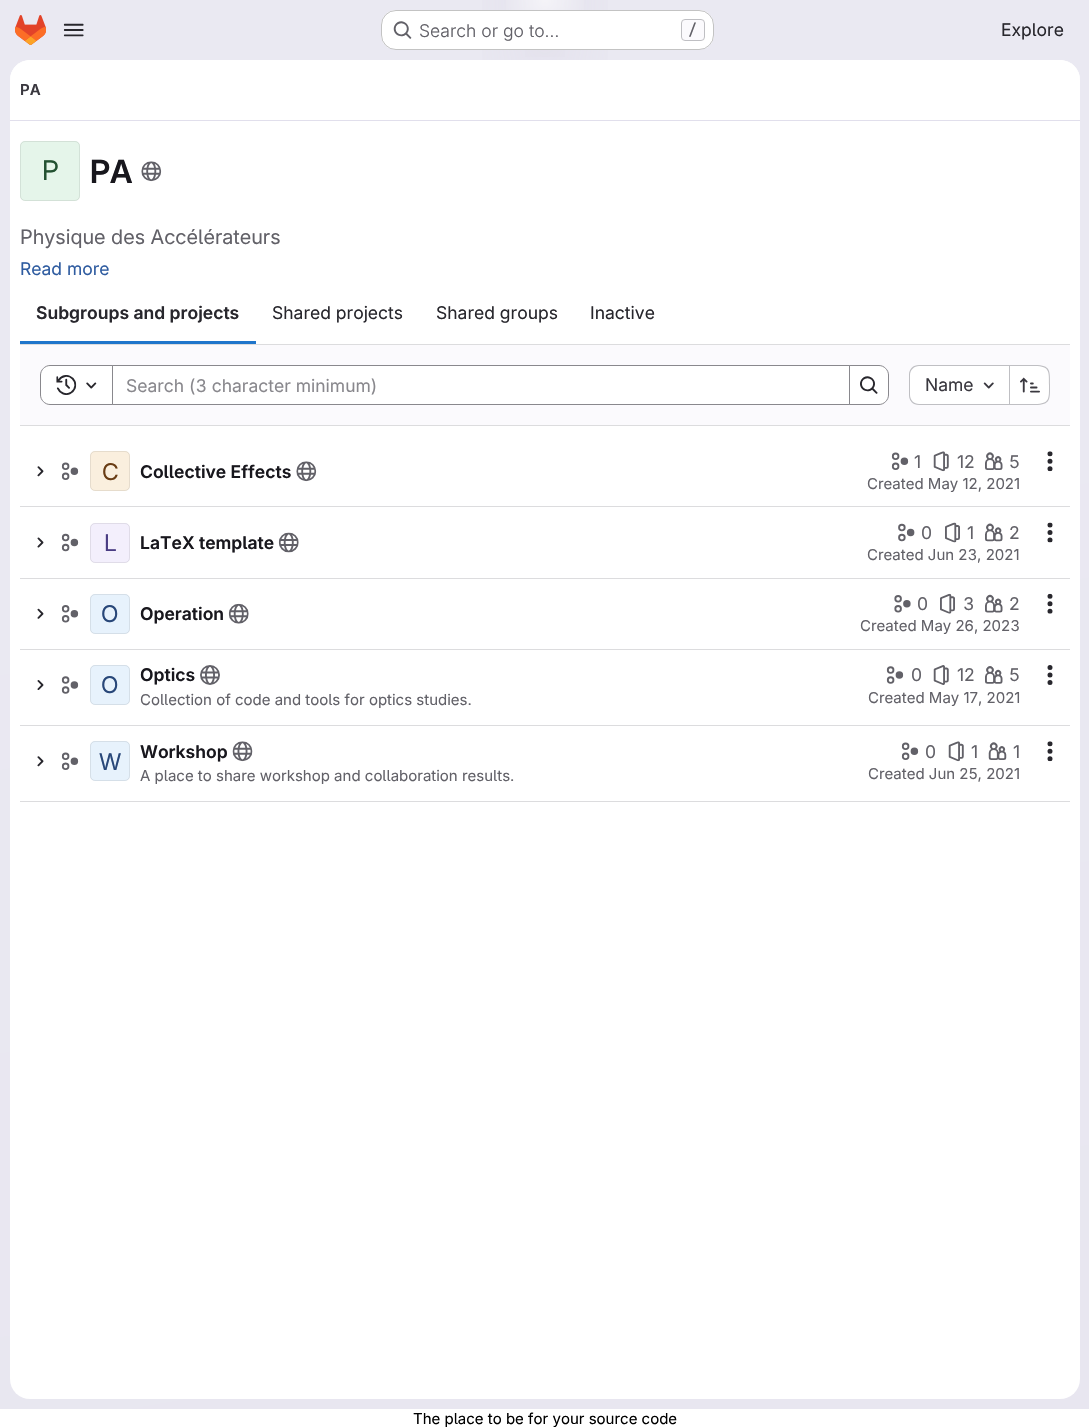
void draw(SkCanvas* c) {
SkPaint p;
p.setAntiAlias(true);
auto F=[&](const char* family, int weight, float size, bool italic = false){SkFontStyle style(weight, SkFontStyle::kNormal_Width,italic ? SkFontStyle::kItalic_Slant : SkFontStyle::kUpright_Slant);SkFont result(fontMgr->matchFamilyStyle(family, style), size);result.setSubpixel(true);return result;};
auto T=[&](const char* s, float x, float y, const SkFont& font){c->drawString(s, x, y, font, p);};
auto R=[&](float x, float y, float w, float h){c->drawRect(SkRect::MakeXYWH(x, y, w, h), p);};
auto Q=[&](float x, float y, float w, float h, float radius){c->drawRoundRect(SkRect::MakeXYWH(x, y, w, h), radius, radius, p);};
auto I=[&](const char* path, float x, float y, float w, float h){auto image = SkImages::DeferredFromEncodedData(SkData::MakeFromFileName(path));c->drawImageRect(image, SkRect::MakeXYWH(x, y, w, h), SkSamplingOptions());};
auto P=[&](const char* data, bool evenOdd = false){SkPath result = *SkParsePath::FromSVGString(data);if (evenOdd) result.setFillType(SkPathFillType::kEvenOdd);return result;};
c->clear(0xffffffff);
{
const SkColor colors[] = {0xffe8e6f0,0xffeae9f2};
const float stops[] = {0,.7};
const SkPoint ends[] = {{684,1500}, {406,-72}};
p.setShader(SkGradientShader::MakeLinear(ends, colors, stops, 2, SkTileMode::kClamp));
p.setAlpha(255);
}
R(0,0,1089,1409);
{
const SkColor colors[] = {0xffe4e2ed,0x00e4e2ed};
const float stops[] = {0,.16};
SkMatrix m = SkMatrix::Translate(545,0).preScale(545,1429);
p.setShader(SkGradientShader::MakeRadial({0, 0}, 1, colors, stops, 2, SkTileMode::kClamp, 0, &m));
p.setAlpha(255);
}
R(482,0,126,60);
{
const SkColor colors[] = {0xffe4e2ec,0x00e4e2ec};
const float stops[] = {0,.11};
SkMatrix m = SkMatrix::Translate(545,0).preScale(545,1429);
p.setShader(SkGradientShader::MakeRadial({0, 0}, 1, colors, stops, 2, SkTileMode::kClamp, 0, &m));
p.setAlpha(255);
}
R(525,25,40,32);
{
const SkColor colors[] = {0x99ffffff,0x00ffffff};
const float stops[] = {0,.03};
p.setShader(SkGradientShader::MakeRadial({545,0}, 1529, colors, stops, 2, SkTileMode::kClamp));
p.setAlpha(255);
}
R(506,0,78,10);
I("1.png",15,15,31,30);
I("2.png",63,23,21,14);
p.setShader(nullptr);
p.setColor(0xffffffff);
Q(381,10,333,40,15);
p.setStroke(true);
p.setStrokeWidth(1);
p.setColor(0x3d050506);
c->drawRoundRect(SkRect::MakeXYWH(381.5,10.5,332,39),14.5,14.5,p);
I("3.png",393,21,19,18);
auto f1 = F("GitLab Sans",300,17.5);
p.setStroke(false);
p.setColor(0xff626168);
T("Search or go to…",419,37,f1);
p.setColor(0xfffbfafd);
c->drawRoundRect(SkRect::MakeXYWH(681.5,19.5,23,21),3.5,3.5,p);
p.setStroke(true);
p.setColor(0xffbfbfc3);
c->drawRoundRect(SkRect::MakeXYWH(681.5,19.5,23,21),3.5,3.5,p);
auto f2 = F("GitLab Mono",500,15);
p.setStroke(false);
p.setColor(0xff626168);
T("/",688,35,f2);
auto f3 = F("GitLab Sans",400,17.5);
p.setColor(0xff28272d);
T("Explore",1001,36,f3);
p.setColor(0xffffffff);
Q(10,60,1070,1339,20);
c->drawPath(P("M30 60h1030c11 0 20 9 20 20v41h-1070v-41c0-11 9-20 20-20z"),p);
p.setColor(0xffe1dfec);
R(10,120,1070,1);
auto f4 = F("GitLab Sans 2",600,15);
p.setColor(0xff3a383f);
T("PA",20,95,f4);
p.setColor(0xffe5f5ea);
Q(20,141,60,60,5);
p.setStroke(true);
p.setColor(0x14050506);
c->drawRoundRect(SkRect::MakeXYWH(20.5,141.5,59,59),4.5,4.5,p);
auto f5 = F("GitLab Sans 2",400,27);
p.setStroke(false);
p.setColor(0xff225131);
T("P",42,180,f5);
auto f6 = F("GitLab Sans",600,32);
p.setColor(0xff18171d);
T("PA",90,183,f6);
I("4.png",141,161,21,21);
auto f7 = F("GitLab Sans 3",400,20);
p.setColor(0xff626168);
T("Physique des Accélérateurs",20,244,f7);
p.setColor(0xff2f5ca0);
T("Read more",20,275,f3);
p.setColor(0xffdcdcde);
R(20,425,1050,1);
auto f8 = F("GitLab Sans 2",600,17.5);
p.setColor(0xff28272d);
T("Subgroups and projects",36,319,f8);
p.setColor(0xff1f75cb);
R(20,341,236,3);
p.setColor(0xff28272d);
T("Shared projects",272,319,f3);
T("Shared groups",436,319,f3);
T("Inactive",590,319,f3);
p.setColor(0xfffbfafd);
R(20,345,1050,80);
p.setColor(0xffdcdcde);
R(20,344,1050,1);
p.setColor(0xffffffff);
R(113,366,736,38);
p.setStroke(true);
p.setColor(0xff89888d);
c->drawRect(SkRect::MakeXYWH(111.5,365.5,738,39),p);
p.setStroke(false);
p.setColor(0xffffffff);
c->drawPath(P("M50 365.5h62.5v39h-62.5c-5 0-9.5-4.5-9.5-9.5v-20c0-5 4.5-9.5 9.5-9.5z"),p);
p.setStroke(true);
p.setColor(0xff89888d);
c->drawPath(P("M50 365.5h62.5v39h-62.5c-5 0-9.5-4.5-9.5-9.5v-20c0-5 4.5-9.5 9.5-9.5z"),p);
I("5.png",56,375,21,20);
I("6.png",86,382,11,7);
p.setStroke(false);
T("Search (3 character minimum)",126,392,f3);
p.setColor(0xffffffff);
c->drawPath(P("M849.5 365.5h29.5c5 0 9.5 4.5 9.5 9.5v20c0 5-4.5 9.5-9.5 9.5h-29.5z"),p);
p.setStroke(true);
p.setColor(0xff89888d);
c->drawPath(P("M849.5 365.5h29.5c5 0 9.5 4.5 9.5 9.5v20c0 5-4.5 9.5-9.5 9.5h-29.5z"),p);
I("7.png",860,376,18,18);
p.setStroke(false);
p.setColor(0xffffffff);
c->drawPath(P("M919 366h90v38h-90c-5 0-9-4-9-9v-20c0-5 4-9 9-9z"),p);
p.setColor(0xffbfbfc3);
c->drawPath(P("M919 365h90v40h-90c-6 0-10-4-10-10v-20c0-6 4-10 10-10zm0 1h90v38h-90c-5 0-9-4-9-9v-20c0-5 4-9 9-9z",true),p);
p.setColor(0xff3a383f);
T("Name",925,391,f3);
I("8.png",983,382,11,7);
p.setColor(0xffffffff);
c->drawPath(P("M1010 366h30c5 0 9 4 9 9v20c0 5-4 9-9 9h-30z"),p);
p.setColor(0xffbfbfc3);
c->drawPath(P("M1010 365h25c16 0 15 6 15 20c0 14 1 20-15 20h-25zm0 1h25c15 0 14 6 14 19c0 13 1 19-14 19h-25z",true),p);
R(1009,365,1,40);
I("9.png",1020,377,20,16);
p.setColor(0xffdcdcde);
R(20,506,1050,1);
I("10.png",37,466,7,11);
I("11.png",61,462,18,18);
p.setColor(0xfffaefde);
Q(90,451,40,40,5);
p.setStroke(true);
p.setColor(0x14050506);
c->drawRoundRect(SkRect::MakeXYWH(90.5,451.5,39,39),4.5,4.5,p);
auto f9 = F("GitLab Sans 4",400,23);
p.setStroke(false);
p.setColor(0xff693c14);
T("C",102,480,f9);
p.setColor(0xff18171d);
T("Collective Effects",140,478,f8);
I("4.png",296,461,21,21);
I("11.png",891,452,18,18);
p.setColor(0xff626168);
T("1",914,468,f3);
I("12.png",933,451,16,21);
T("12",957,468,f3);
I("13.png",985,452,18,18);
T("5",1009,468,f3);
auto f10 = F("GitLab Sans",400,15);
T("Created May 12, 2021",867,489,f10);
I("14.png",1047,451,6,21);
p.setColor(0xffdcdcde);
R(20,578,1050,1);
I("15.png",37,537,7,11);
I("16.png",61,533,18,19);
p.setColor(0xfff3effc);
Q(90,523,40,40,5);
p.setStroke(true);
p.setColor(0x14050506);
c->drawRoundRect(SkRect::MakeXYWH(90.5,523.5,39,39),4.5,4.5,p);
p.setStroke(false);
p.setColor(0xff493c83);
T("L",104,551,f9);
p.setColor(0xff18171d);
T("LaTeX template",140,549,f8);
I("17.png",278,532,21,21);
I("18.png",898,523,17,19);
p.setColor(0xff626168);
T("0",921,539,f3);
I("19.png",945,522,15,21);
T("1",967,539,f3);
I("20.png",985,523,18,19);
T("2",1009,539,f3);
T("Created Jun 23, 2021",867,560,f10);
I("21.png",1047,522,6,21);
p.setColor(0xffdcdcde);
R(20,649,1050,1);
I("22.png",37,608,7,11);
I("23.png",61,605,18,18);
p.setColor(0xffe7f2fc);
Q(90,594,40,40,5);
p.setStroke(true);
p.setColor(0x14050506);
c->drawRoundRect(SkRect::MakeXYWH(90.5,594.5,39,39),4.5,4.5,p);
p.setStroke(false);
p.setColor(0xff284779);
T("O",101,622,f9);
p.setColor(0xff18171d);
T("Operation",140,620,f8);
I("24.png",228,603,21,21);
I("25.png",894,595,17,18);
p.setColor(0xff626168);
T("0",917,610,f3);
I("26.png",940,593,15,21);
T("3",963,610,f3);
I("27.png",985,594,18,19);
T("2",1009,610,f3);
T("Created May 26, 2023",860,631,f10);
I("28.png",1047,593,6,21);
p.setColor(0xffdcdcde);
R(20,725,1050,1);
I("29.png",37,680,7,10);
I("30.png",61,676,18,18);
p.setColor(0xffe7f2fc);
Q(90,665,40,40,5);
p.setStroke(true);
p.setColor(0x14050506);
c->drawRoundRect(SkRect::MakeXYWH(90.5,665.5,39,39),4.5,4.5,p);
p.setStroke(false);
p.setColor(0xff284779);
T("O",101,693,f9);
p.setColor(0xff18171d);
T("Optics",140,681,f8);
I("31.png",200,665,20,20);
p.setColor(0xff626168);
T("Collection of code and tools for optics studies.",140,705,f10);
I("30.png",886,666,18,18);
T("0",911,681,f3);
I("32.png",933,665,16,20);
T("12",957,681,f3);
I("33.png",985,666,18,18);
T("5",1009,681,f3);
T("Created May 17, 2021",868,703,f10);
I("34.png",1047,665,6,20);
p.setColor(0xffdcdcde);
R(20,801,1050,1);
I("35.png",37,756,7,11);
I("36.png",61,752,18,18);
p.setColor(0xffe7f2fc);
Q(90,741,40,40,5);
p.setStroke(true);
p.setColor(0x14050506);
c->drawRoundRect(SkRect::MakeXYWH(90.5,741.5,39,39),4.5,4.5,p);
p.setStroke(false);
p.setColor(0xff284779);
T("W",99,770,f9);
p.setColor(0xff18171d);
T("Workshop",140,758,f8);
I("37.png",232,741,21,21);
p.setColor(0xff626168);
T("A place to share workshop and collaboration results.",140,781,f10);
I("11.png",901,742,18,18);
T("0",925,758,f3);
I("12.png",948,741,16,21);
T("1",971,758,f3);
I("38.png",988,742,19,18);
T("1",1013,758,f3);
T("Created Jun 25, 2021",868,779,f10);
I("14.png",1047,741,6,21);
p.setColor(0xff000000);
T("The place to be for your source code",413,1424,f10);
}
